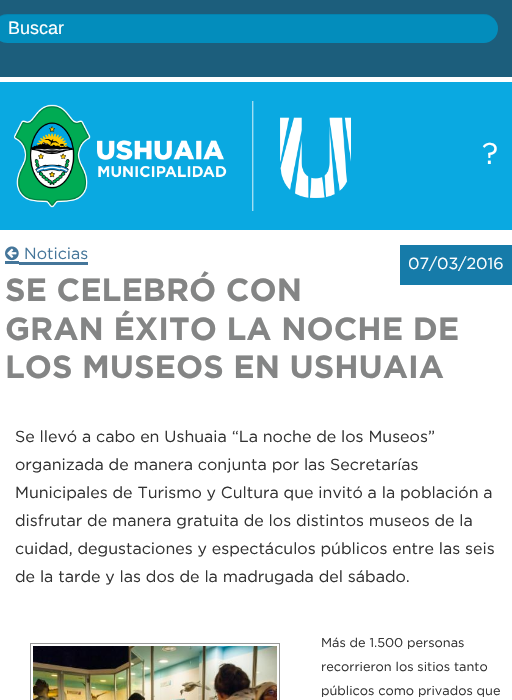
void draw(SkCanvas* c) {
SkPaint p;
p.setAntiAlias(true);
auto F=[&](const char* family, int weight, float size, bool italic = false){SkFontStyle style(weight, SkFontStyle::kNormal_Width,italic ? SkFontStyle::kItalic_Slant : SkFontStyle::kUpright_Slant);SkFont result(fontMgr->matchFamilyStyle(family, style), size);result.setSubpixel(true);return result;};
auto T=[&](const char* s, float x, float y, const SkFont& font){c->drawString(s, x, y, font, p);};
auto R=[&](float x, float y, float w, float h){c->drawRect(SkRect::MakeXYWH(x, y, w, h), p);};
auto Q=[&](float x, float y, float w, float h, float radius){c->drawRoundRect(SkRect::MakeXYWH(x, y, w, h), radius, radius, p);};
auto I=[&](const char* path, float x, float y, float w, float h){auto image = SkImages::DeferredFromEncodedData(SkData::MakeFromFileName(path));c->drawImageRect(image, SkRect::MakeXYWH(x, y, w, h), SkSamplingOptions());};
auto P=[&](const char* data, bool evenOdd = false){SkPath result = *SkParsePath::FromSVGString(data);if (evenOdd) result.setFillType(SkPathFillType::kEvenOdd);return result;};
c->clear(0xffffffff);
p.setColor(0xff1c5e7c);
R(0,0,512,77);
p.setColor(0xff038dbc);
Q(-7,14,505,29,14.5);
p.setColor(0x12000000);
c->drawPath(P("M8 15h476c8 0 14 6 14 14c0-6-3-12-9-14l-5-1h-476c-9 0-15 7-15 15c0-8 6-14 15-14z"),p);
auto f1 = F("Liberation Sans",400,18);
p.setColor(0xffffffff);
T("Buscar",8,34,f1);
p.setColor(0xff0aa9e1);
R(0,82,512,148);
I("1.png",14,101,337,110);
auto f2 = F("Gotham",400,30);
p.setColor(0xffffffff);
T("?",482,164,f2);
p.setColor(0xff45769a);
R(5,261,14,3);
R(19,262,69,3);
I("2.png",5,246,14,15);
auto f3 = F("Gotham",400,16);
T("Noticias",24,259,f3);
p.setColor(0xff167ba9);
R(400,245,112,40);
p.setColor(0xffffffff);
T("07/03/2016",408,269,f3);
auto f4 = F("Gotham",700,32);
p.setColor(0xff848585);
T("SE CELEBRÓ CON",5,301,f4);
T("GRAN ÉXITO LA NOCHE DE",5,340,f4);
T("LOS MUSEOS EN USHUAIA",5,378,f4);
p.setColor(0xff333333);
T("Se llevó a cabo en Ushuaia “La noche de los Museos”",15,442,f3);
T("organizada de manera conjunta por las Secretarías",15,470,f3);
T("Municipales de Turismo y Cultura que invitó a la población a",15,498,f3);
T("disfrutar de manera gratuita de los distintos museos de la",15,526,f3);
T("cuidad, degustaciones y espectáculos públicos entre las seis",15,554,f3);
T("de la tarde y las dos de la madrugada del sábado.",15,582,f3);
p.setStroke(true);
p.setStrokeWidth(1);
p.setColor(0xff989898);
c->drawRect(SkRect::MakeXYWH(30.5,643.5,249,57),p);
I("3.png",33,646,244,54);
auto f5 = F("Gotham",400,12.75);
p.setStroke(false);
p.setColor(0xff333333);
T("Más de 1.500 personas",321,647,f5);
T("recorrieron los sitios tanto",321,671,f5);
T("públicos como privados que",321,695,f5);
}
